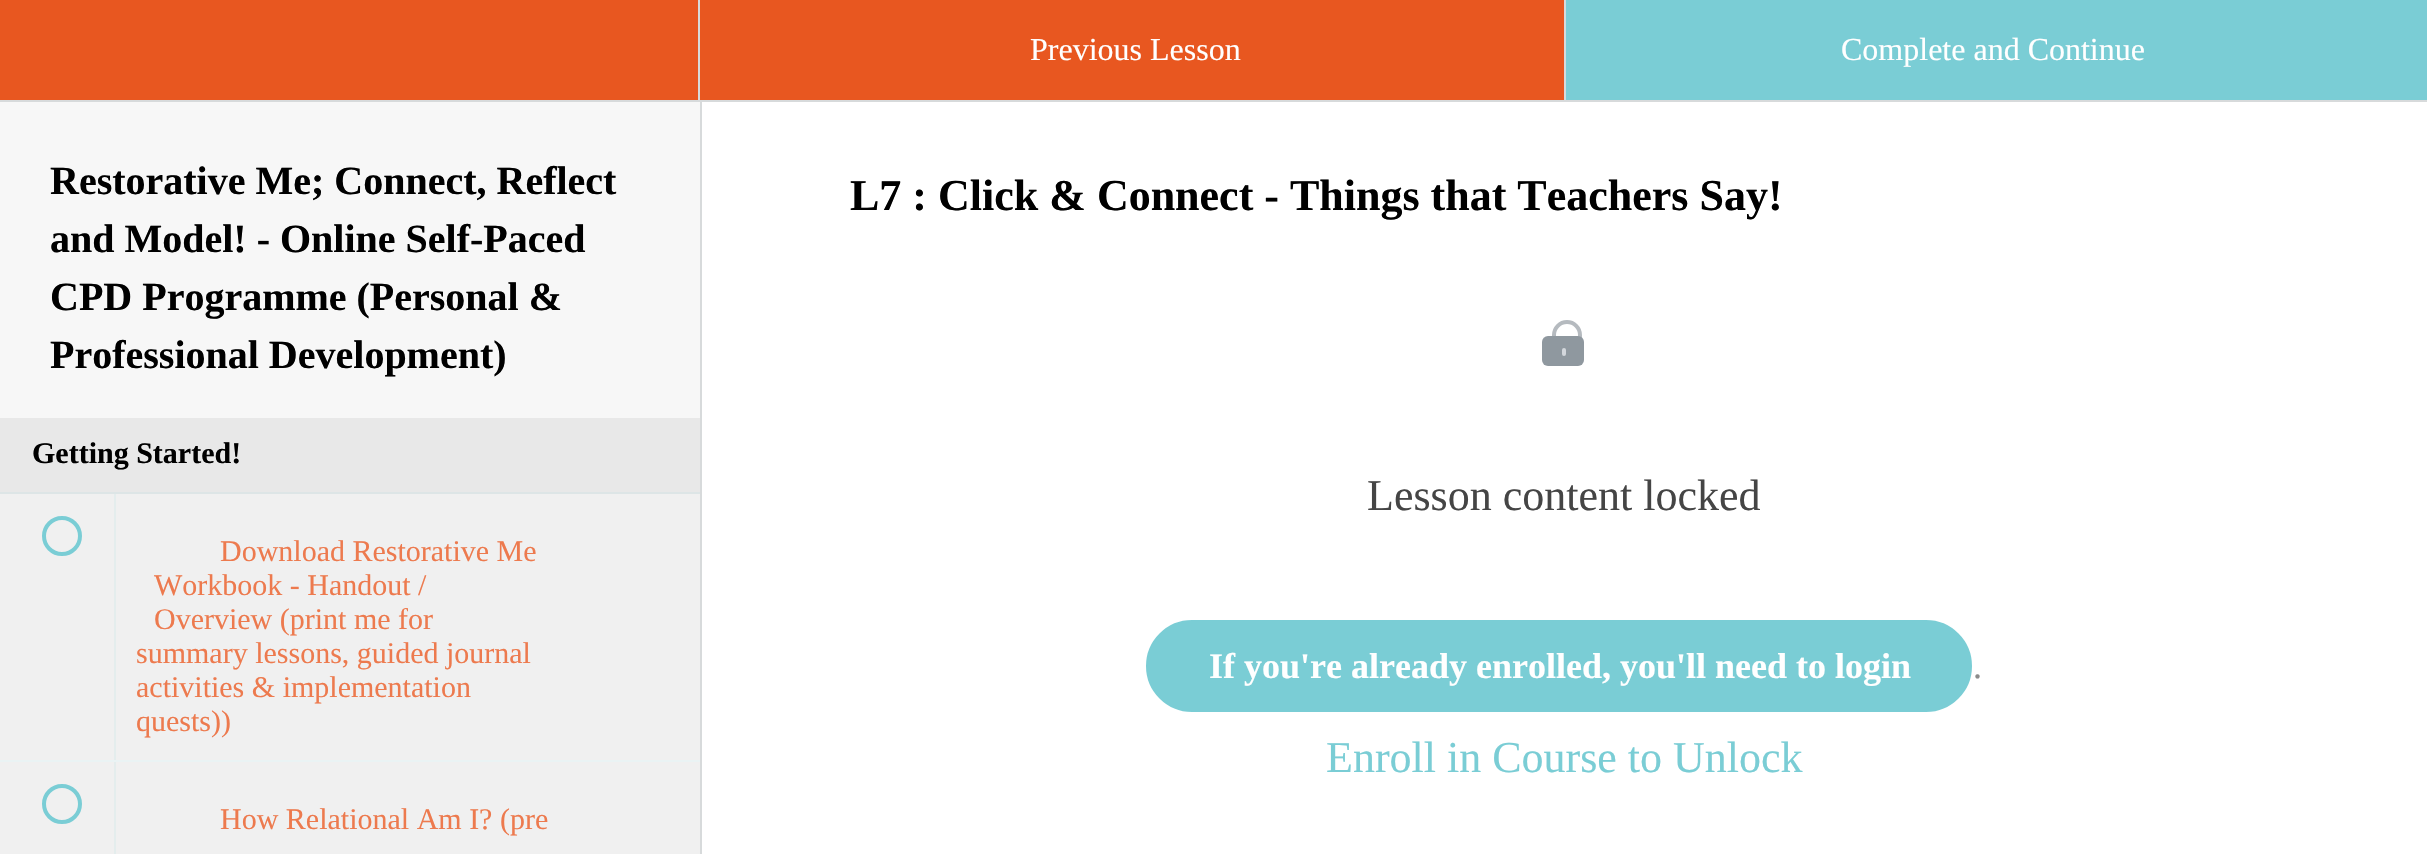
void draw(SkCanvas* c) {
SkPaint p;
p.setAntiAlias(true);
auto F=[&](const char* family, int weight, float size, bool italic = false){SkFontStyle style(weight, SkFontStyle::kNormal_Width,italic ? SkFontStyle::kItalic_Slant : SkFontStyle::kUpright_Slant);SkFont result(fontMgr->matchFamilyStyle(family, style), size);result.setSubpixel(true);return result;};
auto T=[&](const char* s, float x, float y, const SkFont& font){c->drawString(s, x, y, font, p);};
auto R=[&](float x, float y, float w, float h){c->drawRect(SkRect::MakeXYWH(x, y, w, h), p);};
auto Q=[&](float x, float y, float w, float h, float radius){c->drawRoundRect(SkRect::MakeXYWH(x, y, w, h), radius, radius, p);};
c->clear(0xffffffff);
p.setColor(0xffe85720);
R(0,0,1564,100);
p.setColor(0xffd7dadb);
R(0,100,2427,2);
R(698,0,2,100);
auto f1 = F("Liberation Serif",400,32);
p.setColor(0xffffffff);
T("Previous Lesson",1030,60,f1);
p.setColor(0xff7acdd5);
R(1566,0,861,100);
p.setColor(0xffd7dadb);
R(1564,0,2,100);
p.setColor(0xffffffff);
T("Complete and Continue",1841,60,f1);
p.setColor(0xfff7f7f7);
R(0,102,700,316);
p.setColor(0xffd7dadb);
R(700,102,2,752);
auto f2 = F("Liberation Serif",700,40);
p.setColor(0xff000000);
T("Restorative Me; Connect, Reflect",50,194,f2);
T("and Model! - Online Self-Paced",50,252,f2);
T("CPD Programme (Personal &",50,310,f2);
T("Professional Development)",50,368,f2);
p.setColor(0xffe8e8e8);
R(0,418,700,74);
p.setColor(0xffdde5e6);
R(0,492,700,2);
auto f3 = F("Liberation Serif",700,30);
p.setColor(0xff000000);
T("Getting Started!",32,463,f3);
p.setColor(0xffeaf3f4);
R(0,760,700,2);
p.setColor(0xfff0f0f0);
R(0,494,700,266);
p.setStroke(true);
p.setStrokeWidth(4);
p.setColor(0xff7acdd5);
c->drawCircle(62,536,18,p);
p.setStroke(false);
p.setColor(0xffe4eded);
R(114,494,2,266);
auto f4 = F("Liberation Serif",400,30);
p.setColor(0xffed7a4e);
T("Download Restorative Me",220,561,f4);
T("Workbook - Handout /",154,595,f4);
T("Overview (print me for",154,629,f4);
T("summary lessons, guided journal",136,663,f4);
T("activities & implementation",136,697,f4);
T("quests))",136,731,f4);
p.setColor(0xfff0f0f0);
R(0,762,700,92);
p.setStroke(true);
p.setColor(0xff7acdd5);
c->drawCircle(62,804,18,p);
p.setStroke(false);
p.setColor(0xffe4eded);
R(114,762,2,92);
p.setColor(0xffed7a4e);
T("How Relational Am I? (pre",220,829,f4);
auto f5 = F("Liberation Serif",700,44);
p.setColor(0xff000000);
T("L7 : Click & Connect - Things that Teachers Say!",850,210,f5);
p.setStroke(true);
p.setColor(0xffb5babf);
c->drawRoundRect(SkRect::MakeXYWH(1554,322,26,40),13,13,p);
p.setStroke(false);
p.setColor(0xff8f989f);
Q(1542,336,42,30,6);
p.setColor(0xffd3d7dc);
Q(1562,348,4,8,2);
auto f6 = F("Liberation Serif",400,44);
p.setColor(0xff454545);
T("Lesson content locked",1367,510,f6);
p.setColor(0xff7acdd5);
c->drawRoundRect(SkRect::MakeXYWH(1147,621,824,90),45,45,p);
p.setStroke(true);
p.setStrokeWidth(2);
c->drawRoundRect(SkRect::MakeXYWH(1147,621,824,90),45,45,p);
auto f7 = F("Liberation Serif",700,36);
p.setStroke(false);
p.setColor(0xffffffff);
T("If you're already enrolled, you'll need to login",1209,678,f7);
auto f8 = F("Liberation Serif",400,36);
p.setColor(0xff8b8b8b);
T(".",1973,678,f8);
p.setColor(0xff7acdd5);
T("Enroll in Course to Unlock",1326,772,f6);
}
